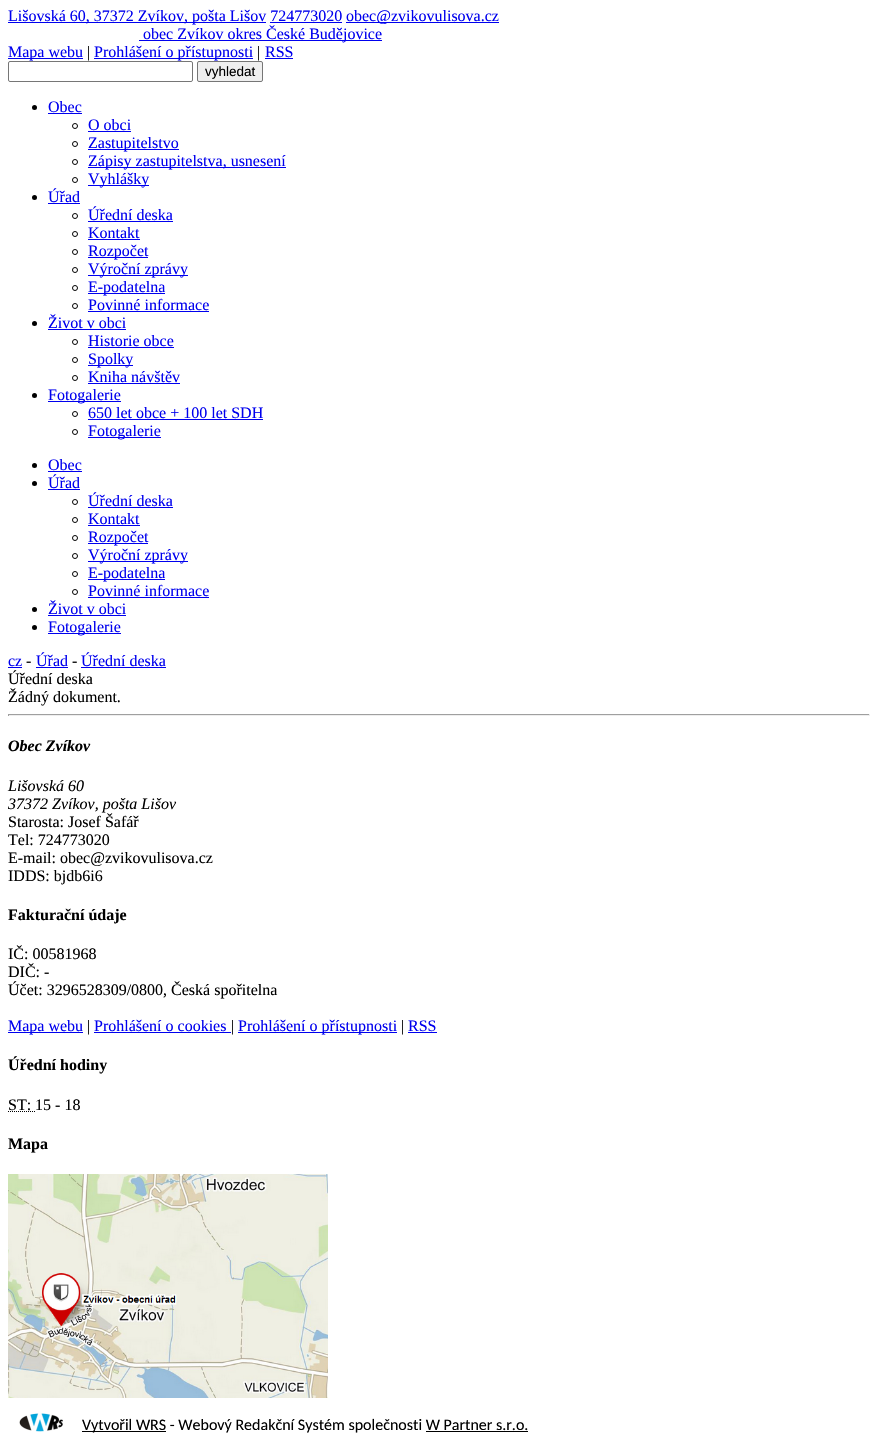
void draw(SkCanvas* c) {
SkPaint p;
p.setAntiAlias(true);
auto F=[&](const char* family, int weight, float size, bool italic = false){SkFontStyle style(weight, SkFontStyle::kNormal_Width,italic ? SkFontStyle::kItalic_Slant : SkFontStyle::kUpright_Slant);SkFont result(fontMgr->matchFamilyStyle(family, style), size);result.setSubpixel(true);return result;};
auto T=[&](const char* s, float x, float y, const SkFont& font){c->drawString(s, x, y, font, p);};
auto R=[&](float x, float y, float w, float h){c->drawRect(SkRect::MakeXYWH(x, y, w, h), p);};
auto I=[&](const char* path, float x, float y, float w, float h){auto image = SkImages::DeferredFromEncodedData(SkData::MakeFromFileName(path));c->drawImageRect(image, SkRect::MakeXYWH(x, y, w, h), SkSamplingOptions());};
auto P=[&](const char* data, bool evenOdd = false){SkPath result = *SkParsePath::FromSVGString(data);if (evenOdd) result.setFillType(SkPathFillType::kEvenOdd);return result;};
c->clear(0xffffffff);
p.setColor(0xff0000ee);
R(8,22,258,1);
auto f1 = F("Liberation Serif",400,16);
T("Lišovská 60, 37372 Zvíkov, pošta Lišov 724773020",8,21,f1);
R(346,22,153,1);
T("obec@zvikovulisova.cz",346,21,f1);
R(270,22,72,1);
R(139,40,243,1);
T("obec Zvíkov okres České Budějovice",143,39,f1);
R(8,58,75,1);
T("Mapa webu",8,57,f1);
p.setColor(0xff000000);
T("|",87,57,f1);
p.setColor(0xff0000ee);
R(94,58,159,1);
T("Prohlášení o přístupnosti",94,57,f1);
p.setColor(0xff000000);
T("|",257,57,f1);
p.setColor(0xff0000ee);
T("RSS",265,57,f1);
R(265,58,28,1);
p.setStroke(true);
p.setStrokeWidth(1);
p.setColor(0xff767676);
c->drawRoundRect(SkRect::MakeXYWH(8.5,61.5,184,20),1.5,1.5,p);
p.setStroke(false);
p.setColor(0xffefefef);
c->drawRoundRect(SkRect::MakeXYWH(197.5,61.5,65,20),1.5,1.5,p);
p.setStroke(true);
p.setColor(0xff767676);
c->drawRoundRect(SkRect::MakeXYWH(197.5,61.5,65,20),1.5,1.5,p);
auto f2 = F("Liberation Sans",400,13.5);
p.setStroke(false);
p.setColor(0xff000000);
T("vyhledat",205,76,f2);
c->drawCircle(34.5,107.5,2.5,p);
p.setColor(0xff0000ee);
T("Obec",48,112,f1);
R(48,113,34,1);
p.setStroke(true);
p.setColor(0xff000000);
c->drawCircle(75,126,2.5,p);
p.setStroke(false);
p.setColor(0xff0000ee);
T("O obci",88,130,f1);
R(88,131,43,1);
p.setStroke(true);
p.setColor(0xff000000);
c->drawCircle(75,144,2.5,p);
p.setStroke(false);
p.setColor(0xff0000ee);
R(88,149,91,1);
T("Zastupitelstvo",88,148,f1);
p.setStroke(true);
p.setColor(0xff000000);
c->drawCircle(75,162,2.5,p);
p.setStroke(false);
p.setColor(0xff0000ee);
R(88,167,198,1);
T("Zápisy zastupitelstva, usnesení",88,166,f1);
p.setStroke(true);
p.setColor(0xff000000);
c->drawCircle(75,180,2.5,p);
p.setStroke(false);
p.setColor(0xff0000ee);
R(88,185,61,1);
T("Vyhlášky",88,184,f1);
p.setColor(0xff000000);
c->drawCircle(34.5,197.5,2.5,p);
p.setColor(0xff0000ee);
T("Úřad",48,202,f1);
R(48,203,32,1);
p.setStroke(true);
p.setColor(0xff000000);
c->drawCircle(75,216,2.5,p);
p.setStroke(false);
p.setColor(0xff0000ee);
T("Úřední deska",88,220,f1);
R(88,221,85,1);
p.setStroke(true);
p.setColor(0xff000000);
c->drawCircle(75,234,2.5,p);
p.setStroke(false);
p.setColor(0xff0000ee);
T("Kontakt",88,238,f1);
R(88,239,52,1);
p.setStroke(true);
p.setColor(0xff000000);
c->drawCircle(75,252,2.5,p);
p.setStroke(false);
p.setColor(0xff0000ee);
R(88,257,60,1);
T("Rozpočet",88,256,f1);
p.setStroke(true);
p.setColor(0xff000000);
c->drawCircle(75,270,2.5,p);
p.setStroke(false);
p.setColor(0xff0000ee);
R(88,275,100,1);
T("Výroční zprávy",88,274,f1);
p.setStroke(true);
p.setColor(0xff000000);
c->drawCircle(75,288,2.5,p);
p.setStroke(false);
p.setColor(0xff0000ee);
R(88,293,77,1);
T("E-podatelna",88,292,f1);
p.setStroke(true);
p.setColor(0xff000000);
c->drawCircle(75,306,2.5,p);
p.setStroke(false);
p.setColor(0xff0000ee);
T("Povinné informace",88,310,f1);
R(88,311,121,1);
p.setColor(0xff000000);
c->drawCircle(34.5,323.5,2.5,p);
p.setColor(0xff0000ee);
T("Život v obci",48,328,f1);
R(48,329,78,1);
p.setStroke(true);
p.setColor(0xff000000);
c->drawCircle(75,342,2.5,p);
p.setStroke(false);
p.setColor(0xff0000ee);
T("Historie obce",88,346,f1);
R(88,347,86,1);
p.setStroke(true);
p.setColor(0xff000000);
c->drawCircle(75,360,2.5,p);
p.setStroke(false);
p.setColor(0xff0000ee);
R(88,365,45,1);
T("Spolky",88,364,f1);
p.setStroke(true);
p.setColor(0xff000000);
c->drawCircle(75,378,2.5,p);
p.setStroke(false);
p.setColor(0xff0000ee);
T("Kniha návštěv",88,382,f1);
R(88,383,92,1);
p.setColor(0xff000000);
c->drawCircle(34.5,395.5,2.5,p);
p.setColor(0xff0000ee);
R(48,401,73,1);
T("Fotogalerie",48,400,f1);
p.setStroke(true);
p.setColor(0xff000000);
c->drawCircle(75,414,2.5,p);
p.setStroke(false);
p.setColor(0xff0000ee);
T("650 let obce + 100 let SDH",88,418,f1);
R(88,419,175,1);
p.setStroke(true);
p.setColor(0xff000000);
c->drawCircle(75,432,2.5,p);
p.setStroke(false);
p.setColor(0xff0000ee);
R(88,437,73,1);
T("Fotogalerie",88,436,f1);
p.setColor(0xff000000);
c->drawCircle(34.5,465.5,2.5,p);
p.setColor(0xff0000ee);
T("Obec",48,470,f1);
R(48,471,34,1);
p.setColor(0xff000000);
c->drawCircle(34.5,483.5,2.5,p);
p.setColor(0xff0000ee);
T("Úřad",48,488,f1);
R(48,489,32,1);
p.setStroke(true);
p.setColor(0xff000000);
c->drawCircle(75,502,2.5,p);
p.setStroke(false);
p.setColor(0xff0000ee);
T("Úřední deska",88,506,f1);
R(88,507,85,1);
p.setStroke(true);
p.setColor(0xff000000);
c->drawCircle(75,520,2.5,p);
p.setStroke(false);
p.setColor(0xff0000ee);
T("Kontakt",88,524,f1);
R(88,525,52,1);
p.setStroke(true);
p.setColor(0xff000000);
c->drawCircle(75,538,2.5,p);
p.setStroke(false);
p.setColor(0xff0000ee);
R(88,543,60,1);
T("Rozpočet",88,542,f1);
p.setStroke(true);
p.setColor(0xff000000);
c->drawCircle(75,556,2.5,p);
p.setStroke(false);
p.setColor(0xff0000ee);
R(88,561,100,1);
T("Výroční zprávy",88,560,f1);
p.setStroke(true);
p.setColor(0xff000000);
c->drawCircle(75,574,2.5,p);
p.setStroke(false);
p.setColor(0xff0000ee);
R(88,579,77,1);
T("E-podatelna",88,578,f1);
p.setStroke(true);
p.setColor(0xff000000);
c->drawCircle(75,592,2.5,p);
p.setStroke(false);
p.setColor(0xff0000ee);
T("Povinné informace",88,596,f1);
R(88,597,121,1);
p.setColor(0xff000000);
c->drawCircle(34.5,609.5,2.5,p);
p.setColor(0xff0000ee);
T("Život v obci",48,614,f1);
R(48,615,78,1);
p.setColor(0xff000000);
c->drawCircle(34.5,627.5,2.5,p);
p.setColor(0xff0000ee);
R(48,633,73,1);
T("Fotogalerie",48,632,f1);
T("cz",8,666,f1);
R(8,667,14,1);
p.setColor(0xff000000);
T("-",26,666,f1);
p.setColor(0xff0000ee);
T("Úřad",36,666,f1);
R(36,667,32,1);
p.setColor(0xff000000);
T("-",72,666,f1);
p.setColor(0xff0000ee);
T("Úřední deska",81,666,f1);
R(81,667,85,1);
p.setColor(0xff000000);
T("Úřední deska",8,684,f1);
T("Žádný dokument.",8,702,f1);
p.setColor(0xff9f9f9f);
R(8,714,862,1);
p.setColor(0xffeeeeee);
R(869,714,1,2);
R(8,715,862,1);
p.setColor(0xff9f9f9f);
R(8,714,1,2);
auto f3 = F("Liberation Serif",700,16,true);
p.setColor(0xff000000);
T("Obec Zvíkov",8,751,f3);
auto f4 = F("Liberation Serif",400,16,true);
T("Lišovská 60",8,791,f4);
T("37372 Zvíkov, pošta Lišov",8,809,f4);
T("Starosta: Josef Šafář",8,827,f1);
T("Tel: 724773020",8,845,f1);
T("E-mail: obec@zvikovulisova.cz",8,863,f1);
T("IDDS: bjdb6i6",8,881,f1);
auto f5 = F("Liberation Serif",700,16);
T("Fakturační údaje",8,920,f5);
T("IČ: 00581968",8,959,f1);
T("DIČ: -",8,977,f1);
T("Účet: 3296528309/0800, Česká spořitelna",8,995,f1);
p.setColor(0xff0000ee);
R(8,1032,75,1);
T("Mapa webu",8,1031,f1);
p.setColor(0xff000000);
T("|",87,1031,f1);
p.setColor(0xff0000ee);
T("Prohlášení o cookies",94,1031,f1);
R(94,1032,137,1);
p.setColor(0xff000000);
T("|",231,1031,f1);
p.setColor(0xff0000ee);
R(238,1032,159,1);
T("Prohlášení o přístupnosti",238,1031,f1);
p.setColor(0xff000000);
T("|",401,1031,f1);
p.setColor(0xff0000ee);
T("RSS",408,1031,f1);
R(408,1032,29,1);
p.setColor(0xff000000);
T("Úřední hodiny",8,1070,f5);
T("ST: 15 - 18",8,1110,f1);
p.setStroke(true);
p.setPathEffect(SkDashPathEffect::Make({{1,1}}, 0));
c->drawPath(P("M8 1111.5h27"),p);
p.setPathEffect(nullptr);
p.setStroke(false);
T("Mapa",8,1149,f5);
I("1.png",8,1174,320,224);
I("2.png",19,1413,44,19);
R(82,1431,84,1);
auto f6 = F("Carlito",400,16);
T("Vytvořil WRS - Webový Redakční Systém společnosti W Partner s.r.o.",82,1430,f6);
R(426,1431,102,1);
}
